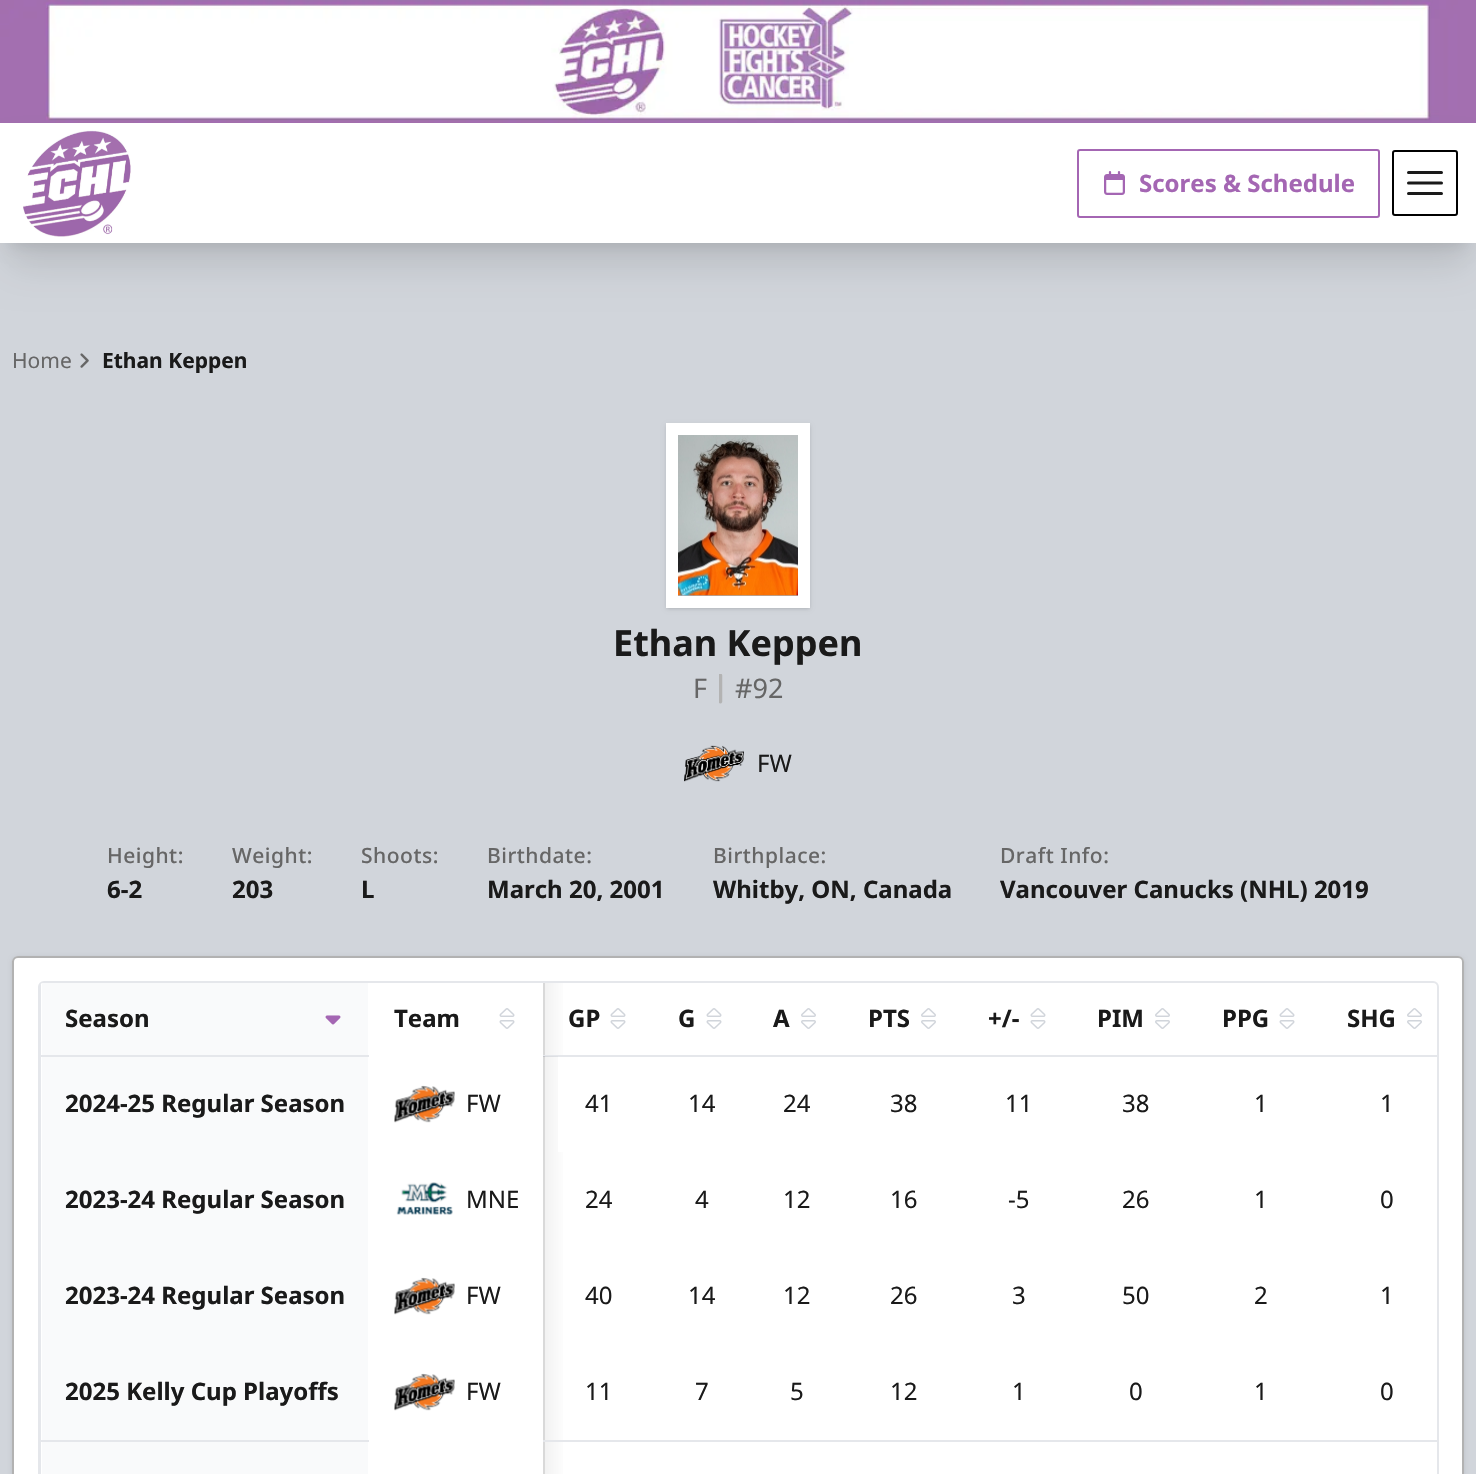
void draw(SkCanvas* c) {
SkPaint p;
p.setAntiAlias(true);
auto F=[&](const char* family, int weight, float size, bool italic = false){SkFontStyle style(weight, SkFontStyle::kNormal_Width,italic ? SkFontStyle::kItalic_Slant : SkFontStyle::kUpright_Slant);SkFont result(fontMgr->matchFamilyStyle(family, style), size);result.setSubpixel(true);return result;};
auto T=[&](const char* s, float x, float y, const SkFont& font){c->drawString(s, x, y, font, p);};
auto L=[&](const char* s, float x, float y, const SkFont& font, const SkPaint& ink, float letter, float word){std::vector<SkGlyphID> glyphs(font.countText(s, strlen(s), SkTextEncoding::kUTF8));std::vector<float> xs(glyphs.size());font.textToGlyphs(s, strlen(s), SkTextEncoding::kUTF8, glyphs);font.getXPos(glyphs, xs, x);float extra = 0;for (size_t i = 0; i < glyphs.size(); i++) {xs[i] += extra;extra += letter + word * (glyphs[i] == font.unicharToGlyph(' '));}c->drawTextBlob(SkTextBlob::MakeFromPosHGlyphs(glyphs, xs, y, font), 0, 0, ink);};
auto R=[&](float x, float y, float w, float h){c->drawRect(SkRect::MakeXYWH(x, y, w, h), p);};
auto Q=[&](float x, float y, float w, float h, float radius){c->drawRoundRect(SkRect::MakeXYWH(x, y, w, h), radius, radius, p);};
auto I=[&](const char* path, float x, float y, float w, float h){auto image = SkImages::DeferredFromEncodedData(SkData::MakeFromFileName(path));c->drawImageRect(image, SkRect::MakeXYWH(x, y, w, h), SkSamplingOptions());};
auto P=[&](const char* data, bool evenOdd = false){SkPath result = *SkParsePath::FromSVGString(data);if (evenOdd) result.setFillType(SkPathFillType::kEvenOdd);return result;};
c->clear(0xffd1d5db);
I("1.png",0,0,1476,123);
p.setColor(0x1a000000);
p.setMaskFilter(SkMaskFilter::MakeBlur(kNormal_SkBlurStyle, 7.5));
c->drawRect(SkRect::MakeXYWH(9,144,1458,102),p);
p.setMaskFilter(nullptr);
p.setMaskFilter(SkMaskFilter::MakeBlur(kNormal_SkBlurStyle, 19));
c->drawRect(SkRect::MakeXYWH(8,161,1461,105),p);
p.setMaskFilter(nullptr);
p.setColor(0xffffffff);
R(0,123,1476,120);
I("2.png",23,130,108,107);
p.setStroke(true);
p.setStrokeWidth(2);
p.setColor(0xffa466b3);
c->drawRoundRect(SkRect::MakeXYWH(1078,150,301,67),2,2,p);
I("3.png",1104,171,21,24);
auto f1 = F("Noto Sans",700,24);
p.setStroke(false);
T("Scores & Schedule",1139,192,f1);
p.setStroke(true);
p.setColor(0xff000000);
c->drawRoundRect(SkRect::MakeXYWH(1393,151,64,64),2,2,p);
p.setStrokeWidth(3);
p.setStrokeCap(SkPaint::kRound_Cap);
p.setStrokeJoin(SkPaint::kRound_Join);
p.setColor(0xff1a1a1a);
c->drawPath(P("M1408.5 172.5h33m-33 10.5h33m-33 10.5h33"),p);
auto f2 = F("Noto Sans",400,21);
p.setStroke(false);
p.setColor(0xff666666);
T("Home",12,368,f2);
I("4.png",80,353,9,15);
auto f3 = F("Noto Sans",700,21);
p.setColor(0xff1a1a1a);
T("Ethan Keppen",102,368,f3);
p.setColor(0x1a000000);
p.setMaskFilter(SkMaskFilter::MakeBlur(kNormal_SkBlurStyle, 1.5));
c->drawRect(SkRect::MakeXYWH(668,426,141,182),p);
p.setMaskFilter(nullptr);
p.setMaskFilter(SkMaskFilter::MakeBlur(kNormal_SkBlurStyle, 2));
c->drawRect(SkRect::MakeXYWH(666,425,144,184),p);
p.setMaskFilter(nullptr);
p.setStroke(true);
p.setStrokeWidth(12);
p.setStrokeCap(SkPaint::kButt_Cap);
p.setStrokeJoin(SkPaint::kMiter_Join);
p.setColor(0xffffffff);
c->drawRect(SkRect::MakeXYWH(672,429,132,173),p);
I("5.png",678,435,120,161);
auto f4 = F("Noto Sans",700,36);
p.setStroke(false);
p.setColor(0xff1a1a1a);
T("Ethan Keppen",613,656,f4);
auto f5 = F("Noto Sans",400,27);
p.setColor(0xff666666);
T("F",693,698,f5);
I("6.png",719,674,4,30);
T("#92",735,698,f5);
I("7.png",684,745,60,37);
auto f6 = F("Noto Sans",400,24);
p.setColor(0xff1a1a1a);
T("FW",757,772,f6);
auto f7 = F("Noto Sans",500,21);
p.setColor(0xff666666);
L("Height:",107,863,f7,p,.5,0);
p.setColor(0xff1a1a1a);
T("6-2",107,898,f1);
p.setColor(0xff666666);
L("Weight:",232,863,f7,p,.5,0);
p.setColor(0xff1a1a1a);
T("203",232,898,f1);
p.setColor(0xff666666);
L("Shoots:",361,863,f7,p,.5,0);
p.setColor(0xff1a1a1a);
T("L",361,898,f1);
p.setColor(0xff666666);
L("Birthdate:",487,863,f7,p,.5,0);
p.setColor(0xff1a1a1a);
T("March 20, 2001",487,898,f1);
p.setColor(0xff666666);
L("Birthplace:",713,863,f7,p,.5,0);
p.setColor(0xff1a1a1a);
T("Whitby, ON, Canada",713,898,f1);
p.setColor(0xff666666);
L("Draft Info:",1000,863,f7,p,.5,0);
p.setColor(0xff1a1a1a);
T("Vancouver Canucks (NHL) 2019",1000,898,f1);
p.setColor(0x1a000000);
p.setMaskFilter(SkMaskFilter::MakeBlur(kNormal_SkBlurStyle, 2));
c->drawRoundRect(SkRect::MakeXYWH(12,957,1452,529),6,6,p);
p.setMaskFilter(nullptr);
p.setColor(0xffffffff);
Q(12,956,1452,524,6);
p.setColor(0xffd9d9d9);
R(543,1056,2,96);
p.setStroke(true);
p.setStrokeWidth(2);
p.setColor(0x4d000000);
c->drawRoundRect(SkRect::MakeXYWH(13,957,1450,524),5,5,p);
p.setColor(0xffe5e7eb);
c->drawRoundRect(SkRect::MakeXYWH(39,982,1399,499),5,5,p);
p.setStroke(false);
R(39,1055,1398,2);
p.setColor(0xffc3c4c8);
R(543,1056,2,1);
c->save();
c->clipPath(P("M44 983h1388c3 0 5 2 5 5v593c0 3-2 5-5 5h-1388c-3 0-5-2-5-5v-593c0-3 2-5 5-5z"),true);
p.setColor(0xffffffff);
c->drawPath(P("M41 983h1391c3 0 5 2 5 5v67h-1396z"),p);
c->restore();
p.setColor(0xfff9fafb);
R(42,983,326,72);
p.setColor(0xffe5e7eb);
R(39,1440,1398,2);
R(40,1055,1,419);
c->save();
c->clipPath(P("M44 983h1388c3 0 5 2 5 5v593c0 3-2 5-5 5h-1388c-3 0-5-2-5-5v-593c0-3 2-5 5-5z"),true);
R(39,983,2,73);
c->restore();
p.setColor(0xff1a1a1a);
T("Season",65,1027,f1);
I("8.png",325,1015,16,10);
T("Team",394,1027,f1);
I("9.png",499,1008,16,21);
{
const SkColor colors[] = {0xffffffff,0xfff2f2f2};
const float stops[] = {0,1};
const SkPoint ends[] = {{567,1019}, {545,1019}};
p.setShader(SkGradientShader::MakeLinear(ends, colors, stops, 2, SkTileMode::kClamp));
p.setAlpha(255);
}
R(545,983,18,72);
p.setShader(nullptr);
p.setColor(0xffd9d9d9);
R(543,983,2,72);
p.setColor(0xff1a1a1a);
T("GP",568,1027,f1);
I("9.png",610,1008,16,21);
T("G",678,1027,f1);
I("9.png",706,1008,16,21);
T("A",773,1027,f1);
I("10.png",801,1008,15,21);
T("PTS",868,1027,f1);
I("10.png",921,1008,15,21);
T("+/-",988,1027,f1);
I("9.png",1030,1008,16,21);
T("PIM",1097,1027,f1);
I("10.png",1155,1008,15,21);
T("PPG",1222,1027,f1);
I("9.png",1279,1008,16,21);
T("SHG",1347,1027,f1);
I("10.png",1407,1008,15,21);
p.setColor(0xfff9fafb);
R(42,1442,326,32);
p.setColor(0xffffffff);
R(369,1440,174,2);
{
const SkColor colors[] = {0xffffffff,0xfff2f2f2};
const float stops[] = {0,1};
const SkPoint ends[] = {{567,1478}, {545,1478}};
p.setShader(SkGradientShader::MakeLinear(ends, colors, stops, 2, SkTileMode::kClamp));
p.setAlpha(255);
}
R(545,1442,18,32);
p.setShader(nullptr);
p.setColor(0xffd9d9d9);
R(543,1442,2,32);
p.setColor(0xfff9fafb);
R(42,1057,326,383);
p.setColor(0xff1a1a1a);
T("2024-25 Regular Season",65,1112,f1);
p.setColor(0xffffffff);
R(369,1055,174,2);
I("11.png",394,1085,61,38);
p.setColor(0xff1a1a1a);
T("FW",466,1112,f6);
{
const SkColor colors[] = {0x00000000,0x0d000000};
const float stops[] = {0,1};
const SkPoint ends[] = {{567,1104}, {545,1104}};
p.setShader(SkGradientShader::MakeLinear(ends, colors, stops, 2, SkTileMode::kClamp));
p.setAlpha(255);
}
R(545,1056,13,96);
p.setShader(nullptr);
p.setColor(0xff1a1a1a);
T("41",585,1112,f6);
T("14",688,1112,f6);
T("24",783,1112,f6);
T("38",890,1112,f6);
T("11",1005,1112,f6);
T("38",1122,1112,f6);
T("1",1254,1112,f6);
T("1",1380,1112,f6);
T("2023-24 Regular Season",65,1208,f1);
I("12.png",396,1182,57,33);
T("MNE",466,1208,f6);
{
const SkColor colors[] = {0xffffffff,0xfff2f2f2};
const float stops[] = {0,1};
const SkPoint ends[] = {{567,1200}, {545,1200}};
p.setShader(SkGradientShader::MakeLinear(ends, colors, stops, 2, SkTileMode::kClamp));
p.setAlpha(255);
}
R(545,1152,18,96);
p.setShader(nullptr);
p.setColor(0xffd9d9d9);
R(543,1152,2,288);
p.setColor(0xff1a1a1a);
T("24",585,1208,f6);
T("4",695,1208,f6);
T("12",783,1208,f6);
T("16",890,1208,f6);
T("-5",1008,1208,f6);
T("26",1122,1208,f6);
T("1",1254,1208,f6);
T("0",1380,1208,f6);
T("2023-24 Regular Season",65,1304,f1);
I("11.png",394,1277,61,38);
T("FW",466,1304,f6);
{
const SkColor colors[] = {0xffffffff,0xfff2f2f2};
const float stops[] = {0,1};
const SkPoint ends[] = {{567,1296}, {545,1296}};
p.setShader(SkGradientShader::MakeLinear(ends, colors, stops, 2, SkTileMode::kClamp));
p.setAlpha(255);
}
R(545,1248,18,96);
p.setShader(nullptr);
p.setColor(0xff1a1a1a);
T("40",585,1304,f6);
T("14",688,1304,f6);
T("12",783,1304,f6);
T("26",890,1304,f6);
T("3",1012,1304,f6);
T("50",1122,1304,f6);
T("2",1254,1304,f6);
T("1",1380,1304,f6);
T("2025 Kelly Cup Playoffs",65,1400,f1);
I("11.png",394,1373,61,38);
T("FW",466,1400,f6);
{
const SkColor colors[] = {0xffffffff,0xfff2f2f2};
const float stops[] = {0,1};
const SkPoint ends[] = {{567,1392}, {545,1392}};
p.setShader(SkGradientShader::MakeLinear(ends, colors, stops, 2, SkTileMode::kClamp));
p.setAlpha(255);
}
R(545,1344,18,96);
p.setShader(nullptr);
p.setColor(0xff1a1a1a);
T("11",585,1400,f6);
T("7",695,1400,f6);
T("5",790,1400,f6);
T("12",890,1400,f6);
T("1",1012,1400,f6);
T("0",1129,1400,f6);
T("1",1254,1400,f6);
T("0",1380,1400,f6);
}
